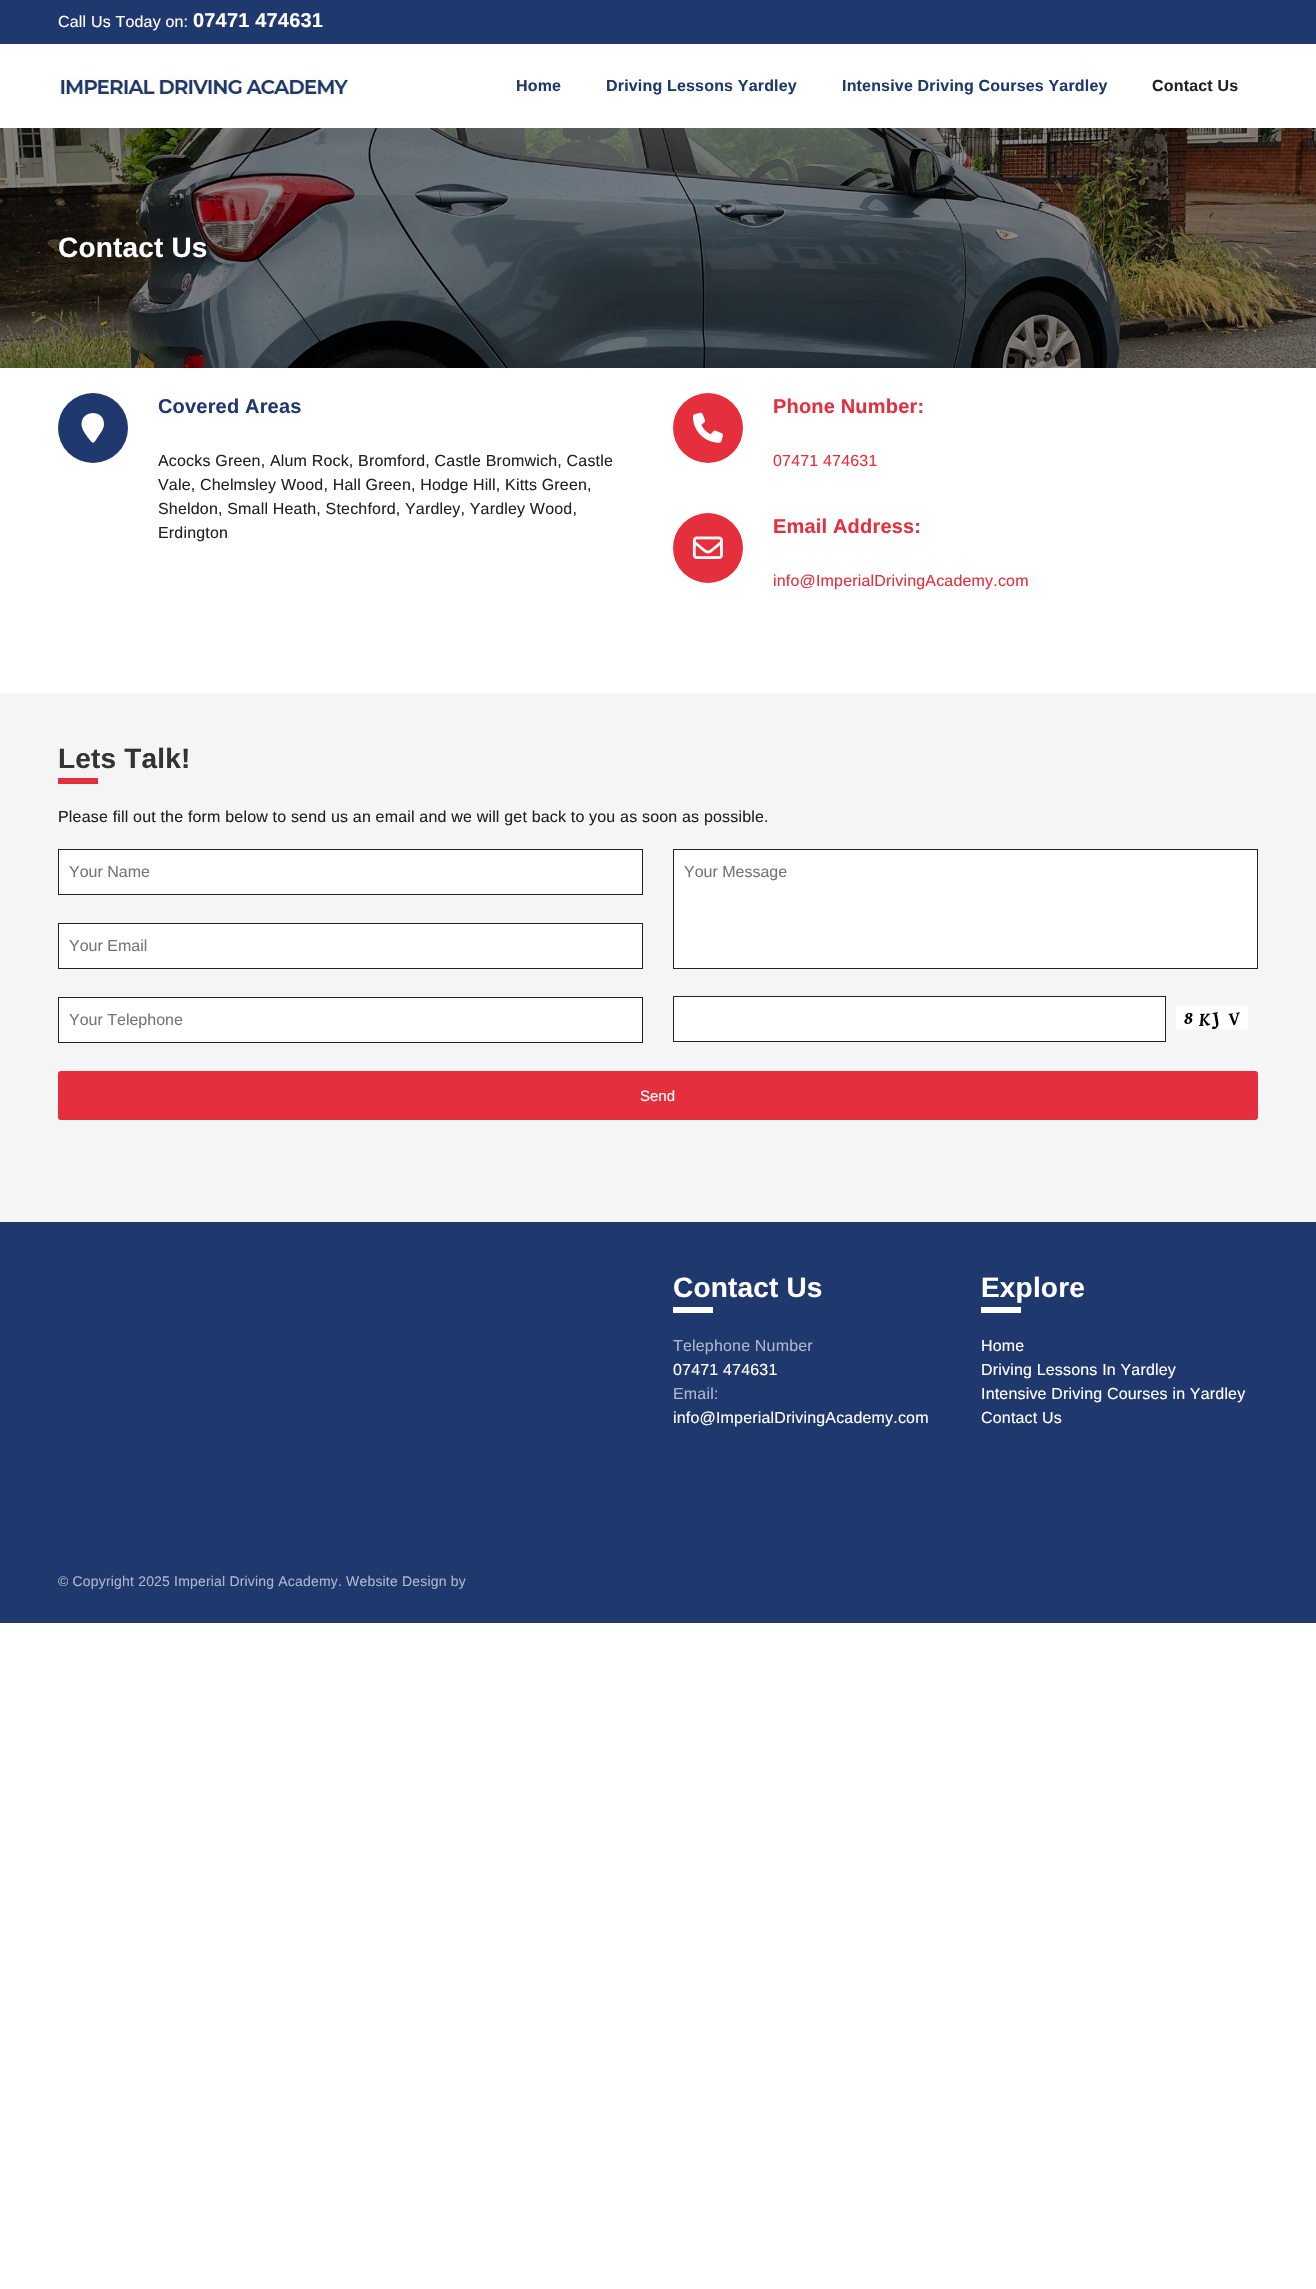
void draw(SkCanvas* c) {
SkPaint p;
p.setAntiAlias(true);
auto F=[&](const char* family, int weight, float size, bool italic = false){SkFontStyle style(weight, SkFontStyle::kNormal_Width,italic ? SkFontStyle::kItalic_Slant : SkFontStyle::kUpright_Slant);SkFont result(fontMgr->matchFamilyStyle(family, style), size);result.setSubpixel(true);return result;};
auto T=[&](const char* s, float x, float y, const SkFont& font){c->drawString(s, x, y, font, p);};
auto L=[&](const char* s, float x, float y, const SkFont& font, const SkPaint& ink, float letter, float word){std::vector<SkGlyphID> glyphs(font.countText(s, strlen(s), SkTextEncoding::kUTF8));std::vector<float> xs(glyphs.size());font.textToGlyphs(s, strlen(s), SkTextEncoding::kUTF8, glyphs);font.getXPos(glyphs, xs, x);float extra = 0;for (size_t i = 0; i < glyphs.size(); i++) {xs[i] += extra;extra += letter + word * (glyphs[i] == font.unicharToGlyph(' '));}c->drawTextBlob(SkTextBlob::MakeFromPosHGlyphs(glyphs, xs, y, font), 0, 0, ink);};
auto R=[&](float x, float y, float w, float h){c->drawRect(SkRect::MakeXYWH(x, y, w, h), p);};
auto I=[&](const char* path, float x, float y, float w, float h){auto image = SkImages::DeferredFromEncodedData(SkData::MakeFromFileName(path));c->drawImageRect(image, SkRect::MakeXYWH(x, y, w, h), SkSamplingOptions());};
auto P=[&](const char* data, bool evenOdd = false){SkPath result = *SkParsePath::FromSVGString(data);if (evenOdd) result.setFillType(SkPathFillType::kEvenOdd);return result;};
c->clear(0xffffffff);
p.setColor(0xff1f386e);
R(0,0,1316,44);
auto f1 = F("Liberation Sans",400,16);
p.setColor(0xffffffff);
L("Call Us Today on:",58,27,f1,p,.18,0);
auto f2 = F("Liberation Sans",700,20);
L("07471 474631",193,27,f2,p,.18,0);
I("1.png",58,75,292,23);
auto f3 = F("Liberation Sans",700,16);
p.setColor(0xff1f386e);
L("Home",516,91,f3,p,.18,0);
L("Driving Lessons Yardley",606,91,f3,p,.18,0);
L("Intensive Driving Courses Yardley",842,91,f3,p,.18,0);
p.setColor(0xff222222);
L("Contact Us",1152,91,f3,p,.18,0);
I("2.png",0,128,1316,240);
auto f4 = F("Liberation Sans",700,28);
p.setColor(0xffffffff);
L("Contact Us",58,257,f4,p,.18,0);
p.setColor(0xff1f386e);
c->drawCircle(93,428,35,p);
p.setColor(0xffffffff);
c->drawPath(P("M104 424c0 4.5-3 8.5-5.5 12c-5.5 8.5-5 9-11 1c-2.5-3.5-6-8.5-6-13c.5-14.5 22.5-15 22.5 0z"),p);
p.setColor(0xff1f386e);
L("Covered Areas",158,413,f2,p,.18,0);
p.setColor(0xff222222);
L("Acocks Green, Alum Rock, Bromford, Castle Bromwich, Castle",158,466,f1,p,.18,0);
L("Vale, Chelmsley Wood, Hall Green, Hodge Hill, Kitts Green,",158,490,f1,p,.18,0);
L("Sheldon, Small Heath, Stechford, Yardley, Yardley Wood,",158,514,f1,p,.18,0);
L("Erdington",158,538,f1,p,.18,0);
p.setColor(0xffe52f3c);
c->drawCircle(708,428,35,p);
I("3.png",692,412,31,31);
L("Phone Number:",773,413,f2,p,.18,0);
L("07471 474631",773,466,f1,p,.18,0);
c->drawCircle(708,548,35,p);
I("4.png",692,536,31,23);
L("Email Address:",773,533,f2,p,.18,0);
L("info@ImperialDrivingAcademy.com",773,586,f1,p,.18,0);
p.setColor(0xfff5f5f5);
R(0,693,1316,529);
p.setColor(0xff333333);
L("Lets Talk!",58,768,f4,p,.18,0);
p.setColor(0xffe52f3c);
R(58,778,40,6);
p.setColor(0xff222222);
L("Please fill out the form below to send us an email and we will get back to you as soon as possible.",58,822,f1,p,.18,0);
p.setColor(0xffffffff);
c->drawRect(SkRect::MakeXYWH(58.5,849.5,584,45),p);
p.setStroke(true);
p.setStrokeWidth(1);
p.setColor(0xff222222);
c->drawRect(SkRect::MakeXYWH(58.5,849.5,584,45),p);
p.setStroke(false);
p.setColor(0xff757575);
T("Your Name",69,877,f1);
p.setColor(0xffffffff);
c->drawRect(SkRect::MakeXYWH(58.5,923.5,584,45),p);
p.setStroke(true);
p.setColor(0xff222222);
c->drawRect(SkRect::MakeXYWH(58.5,923.5,584,45),p);
p.setStroke(false);
p.setColor(0xff757575);
T("Your Email",69,951,f1);
p.setColor(0xffffffff);
c->drawRect(SkRect::MakeXYWH(58.5,997.5,584,45),p);
p.setStroke(true);
p.setColor(0xff222222);
c->drawRect(SkRect::MakeXYWH(58.5,997.5,584,45),p);
p.setStroke(false);
p.setColor(0xff757575);
T("Your Telephone",69,1025,f1);
p.setColor(0xffffffff);
c->drawRect(SkRect::MakeXYWH(673.5,849.5,584,119),p);
p.setStroke(true);
p.setColor(0xff222222);
c->drawRect(SkRect::MakeXYWH(673.5,849.5,584,119),p);
p.setStroke(false);
p.setColor(0xff757575);
T("Your Message",684,877,f1);
p.setColor(0xffffffff);
c->drawRect(SkRect::MakeXYWH(673.5,996.5,492,45),p);
p.setStroke(true);
p.setColor(0xff222222);
c->drawRect(SkRect::MakeXYWH(673.5,996.5,492,45),p);
I("5.png",1176,1006,72,24);
p.setStroke(false);
p.setColor(0xffe52f3c);
c->drawRoundRect(SkRect::MakeXYWH(59,1072,1198,47),2,2,p);
p.setStroke(true);
p.setStrokeWidth(2);
c->drawRoundRect(SkRect::MakeXYWH(59,1072,1198,47),2,2,p);
auto f5 = F("Liberation Sans",400,15);
p.setStroke(false);
p.setColor(0xffffffff);
T("Send",640,1101,f5);
p.setColor(0xff1f386e);
R(0,1222,1316,401);
p.setColor(0xffffffff);
L("Contact Us",673,1297,f4,p,.18,0);
R(673,1307,40,6);
p.setColor(0xffaeb7ca);
L("Telephone Number",673,1351,f1,p,.18,0);
p.setColor(0xffffffff);
L("07471 474631",673,1375,f1,p,.18,0);
p.setColor(0xffaeb7ca);
L("Email:",673,1399,f1,p,.18,0);
p.setColor(0xffffffff);
L("info@ImperialDrivingAcademy.com",673,1423,f1,p,.18,0);
L("Explore",981,1297,f4,p,.18,0);
R(981,1307,40,6);
L("Home",981,1351,f1,p,.18,0);
L("Driving Lessons In Yardley",981,1375,f1,p,.18,0);
L("Intensive Driving Courses in Yardley",981,1399,f1,p,.18,0);
L("Contact Us",981,1423,f1,p,.18,0);
auto f6 = F("Liberation Sans",400,14);
p.setColor(0xffaeb7ca);
L("© Copyright 2025 Imperial Driving Academy. Website Design by",58,1586,f6,p,.18,0);
}
